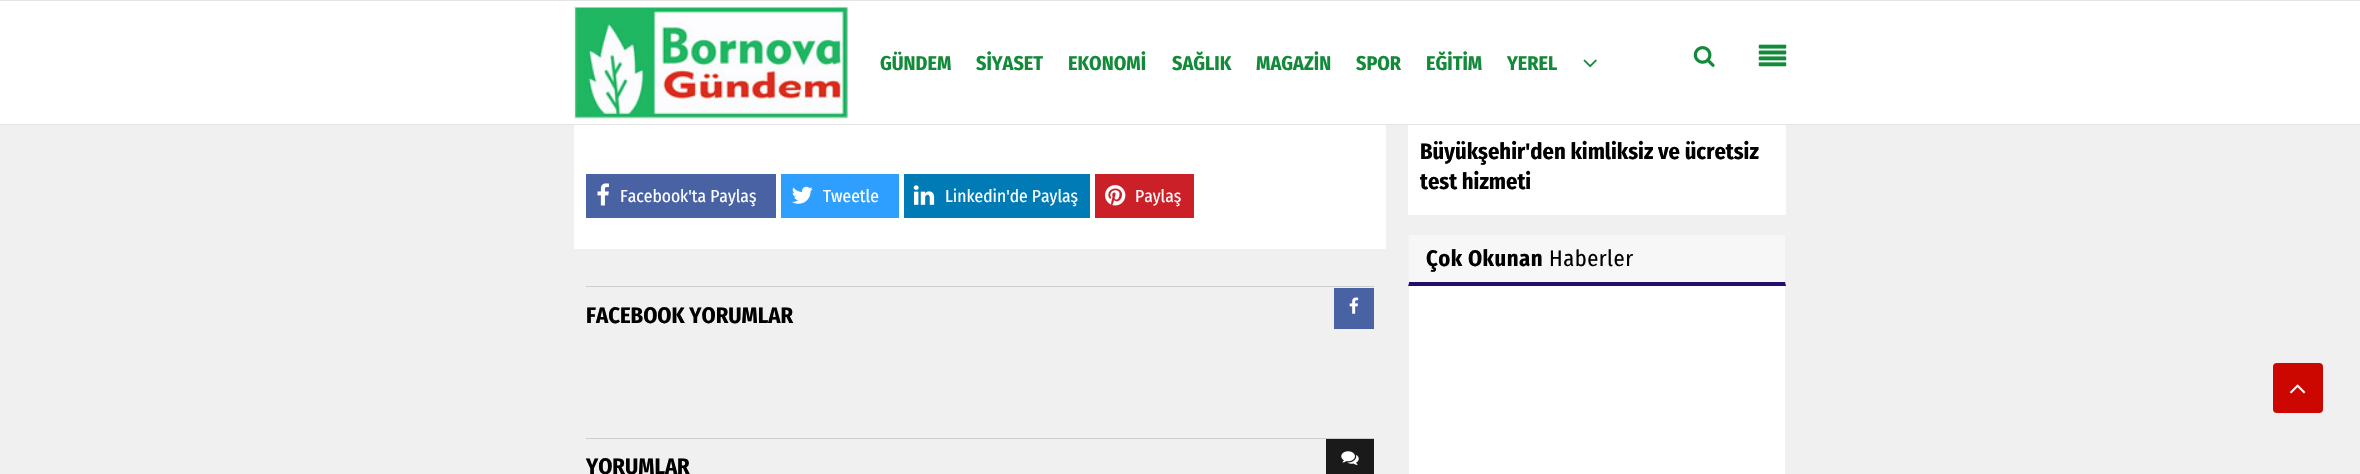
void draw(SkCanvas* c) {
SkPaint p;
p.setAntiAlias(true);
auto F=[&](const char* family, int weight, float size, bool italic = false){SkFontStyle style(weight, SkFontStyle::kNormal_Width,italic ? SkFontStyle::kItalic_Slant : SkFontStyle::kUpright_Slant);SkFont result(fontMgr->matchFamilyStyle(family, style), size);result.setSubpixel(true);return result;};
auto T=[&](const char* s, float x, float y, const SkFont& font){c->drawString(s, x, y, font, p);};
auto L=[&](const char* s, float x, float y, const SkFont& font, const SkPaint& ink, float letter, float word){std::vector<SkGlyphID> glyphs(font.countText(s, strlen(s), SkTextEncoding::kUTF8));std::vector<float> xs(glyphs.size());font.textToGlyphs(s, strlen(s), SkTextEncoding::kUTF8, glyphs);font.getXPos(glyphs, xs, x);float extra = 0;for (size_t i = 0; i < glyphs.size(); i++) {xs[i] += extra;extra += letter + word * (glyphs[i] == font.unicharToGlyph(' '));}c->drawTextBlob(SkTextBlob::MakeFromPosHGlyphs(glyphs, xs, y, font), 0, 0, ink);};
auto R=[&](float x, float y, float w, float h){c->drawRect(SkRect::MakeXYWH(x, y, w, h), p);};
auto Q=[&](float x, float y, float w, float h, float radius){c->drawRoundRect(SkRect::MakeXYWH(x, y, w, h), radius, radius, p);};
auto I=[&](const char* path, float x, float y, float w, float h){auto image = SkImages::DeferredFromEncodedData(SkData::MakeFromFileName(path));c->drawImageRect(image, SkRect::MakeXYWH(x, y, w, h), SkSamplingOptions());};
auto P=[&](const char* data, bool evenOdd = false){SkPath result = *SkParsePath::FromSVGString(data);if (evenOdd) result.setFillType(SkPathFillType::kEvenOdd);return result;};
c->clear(0xfff0f0f0);
p.setColor(0xffffffff);
R(0,1,2360,123);
p.setColor(0xffe4e4e4);
R(0,0,2360,1);
R(0,124,2360,1);
I("1.png",573,6,276,113);
auto f1 = F("Fira Sans Condensed",700,20);
p.setColor(0xff138a39);
T("GÜNDEM",880,70,f1);
T("SİYASET",976,70,f1);
T("EKONOMİ",1068,70,f1);
T("SAĞLIK",1172,70,f1);
T("MAGAZİN",1256,70,f1);
T("SPOR",1356,70,f1);
T("EĞİTİM",1426,70,f1);
T("YEREL",1507,70,f1);
I("2.png",1583,59,14,9);
I("3.png",1693,46,22,21);
I("4.png",1758,44,29,23);
p.setColor(0xffffffff);
R(574,125,812,124);
p.setColor(0xff4862a3);
R(586,174,190,44);
I("5.png",597,183,12,23);
auto f2 = F("Fira Sans Condensed",400,17.5);
p.setColor(0xffffffff);
T("Facebook'ta Paylaş",620,202,f2);
p.setColor(0xff2e9fff);
R(781,174,118,44);
I("6.png",792,186,21,18);
p.setColor(0xffffffff);
T("Tweetle",823,202,f2);
p.setColor(0xff007bb6);
R(904,174,186,44);
I("7.png",913,185,22,20);
p.setColor(0xffffffff);
T("Linkedin'de Paylaş",945,202,f2);
p.setColor(0xffcb2027);
R(1095,174,99,44);
I("8.png",1105,185,21,21);
p.setColor(0xffffffff);
T("Paylaş",1135,202,f2);
p.setColor(0xffcccccc);
R(586,286,788,1);
auto f3 = F("Fira Sans Condensed",700,22.5);
p.setColor(0xff000000);
T("FACEBOOK YORUMLAR",586,323,f3);
p.setColor(0xff4862a3);
R(1334,288,40,41);
I("9.png",1349,297,10,17);
p.setColor(0xffcccccc);
R(586,438,788,1);
p.setColor(0xff000000);
T("YORUMLAR",586,474,f3);
p.setColor(0xff1a1a1a);
R(1326,439,48,35);
I("10.png",1341,451,18,14);
p.setColor(0xffffffff);
R(1408,125,378,90);
p.setColor(0xff000000);
T("Büyükşehir'den kimliksiz ve ücretsiz",1420,159,f3);
T("test hizmeti",1420,189,f3);
p.setColor(0xfff7f7f7);
R(1409,235,376,47);
p.setColor(0xff260d6b);
c->drawPath(P("M1786 286h-378l1-4h376z"),p);
p.setColor(0xfff2f2f2);
c->drawPath(P("M1408 286v-52l1 1v47z"),p);
p.setColor(0xff000000);
L("Çok Okunan",1426,266,f3,p,.5,0);
auto f4 = F("Fira Sans Condensed",400,22.5);
L("Haberler",1549,266,f4,p,.5,0);
p.setColor(0xffffffff);
R(1409,286,376,188);
p.setColor(0xffcc0700);
Q(2273,363,50,50,4);
I("11.png",2290,384,16,10);
}
